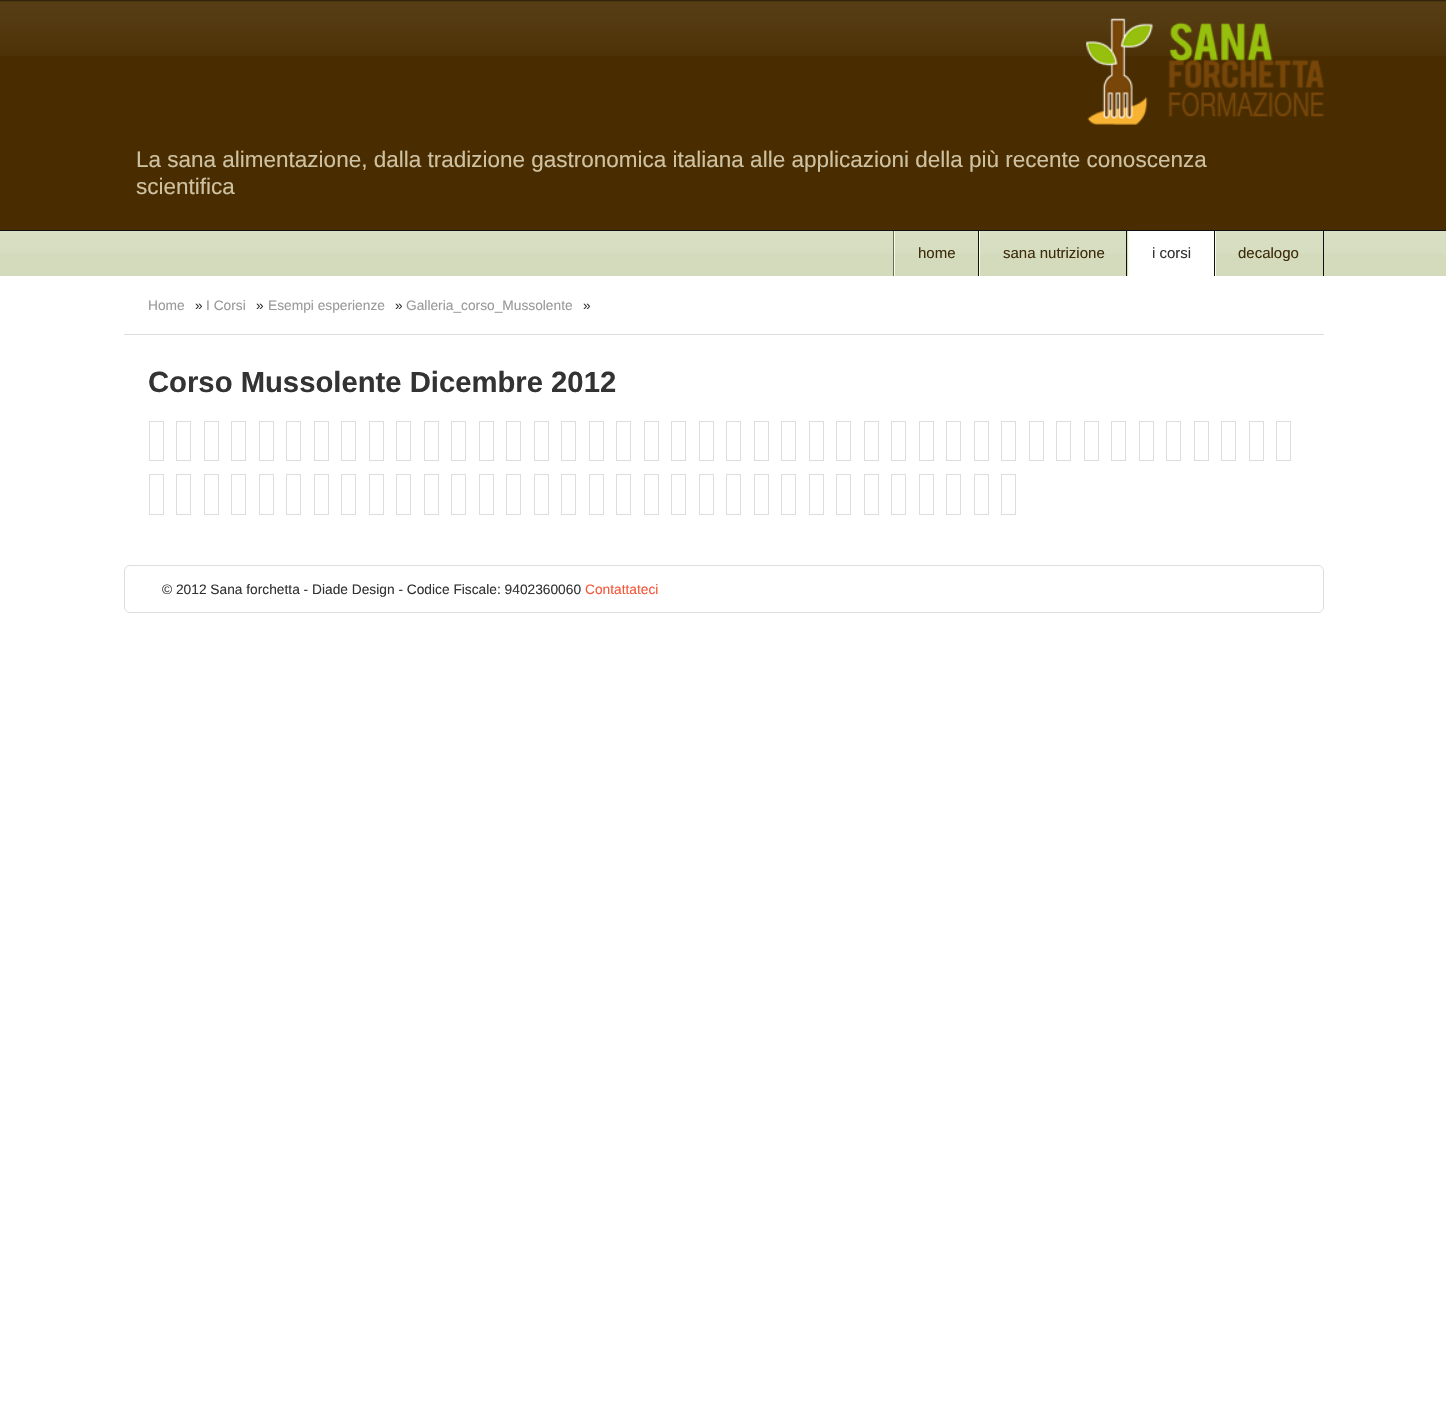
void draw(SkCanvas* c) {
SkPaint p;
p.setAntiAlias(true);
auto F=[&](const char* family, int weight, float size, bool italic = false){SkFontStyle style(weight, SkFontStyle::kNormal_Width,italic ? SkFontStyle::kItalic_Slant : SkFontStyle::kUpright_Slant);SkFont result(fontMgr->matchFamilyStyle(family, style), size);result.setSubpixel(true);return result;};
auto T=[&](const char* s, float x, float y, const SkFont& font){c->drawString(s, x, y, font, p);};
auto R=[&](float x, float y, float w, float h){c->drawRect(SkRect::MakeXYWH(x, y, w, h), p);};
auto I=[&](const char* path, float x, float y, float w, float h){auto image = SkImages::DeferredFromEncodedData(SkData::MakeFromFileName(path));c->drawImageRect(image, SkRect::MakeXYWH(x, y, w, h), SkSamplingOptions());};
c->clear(0xffffffff);
p.setColor(0xff492d01);
R(0,0,1446,230);
I("1.png",0,0,1446,56);
I("2.png",1086,18,238,107);
auto f1 = F("Liberation Sans",400,22.5);
p.setColor(0xffcec1a1);
T("La sana alimentazione, dalla tradizione gastronomica italiana alle applicazioni della più recente conoscenza",136,167,f1);
T("scientifica",136,194,f1);
p.setColor(0xffd3dbbc);
R(0,231,1446,45);
I("3.png",0,231,1446,23);
p.setColor(0xff111111);
R(0,230,1446,1);
p.setColor(0xff696d5e);
R(893,231,1,45);
p.setColor(0xff111111);
R(978,231,1,45);
p.setColor(0xfff5fdde);
R(894,231,1,45);
auto f2 = F("Liberation Sans",400,15);
p.setColor(0xff3d2b0a);
T("home",918,258,f2);
p.setColor(0xff111111);
R(1126,231,1,45);
p.setColor(0xfff5fdde);
R(979,231,1,45);
p.setColor(0xff3d2b0a);
T("sana nutrizione",1003,258,f2);
p.setColor(0xffffffff);
R(1129,231,85,45);
p.setColor(0xff111111);
R(1214,231,1,45);
p.setColor(0xfff5fdde);
R(1128,231,1,45);
p.setColor(0xff333333);
T("i corsi",1152,258,f2);
p.setColor(0xff111111);
R(1323,231,1,45);
p.setColor(0xfff5fdde);
R(1215,231,1,45);
p.setColor(0xff3d2b0a);
T("decalogo",1238,258,f2);
p.setColor(0xffdddddd);
R(124,334,1200,1);
auto f3 = F("Liberation Sans",400,13.75);
p.setColor(0xff999999);
T("Home",148,310,f3);
p.setColor(0xff333333);
T("»",195,310,f3);
p.setColor(0xff999999);
T("I Corsi",206,310,f3);
p.setColor(0xff333333);
T("»",256,310,f3);
p.setColor(0xff999999);
T("Esempi esperienze",268,310,f3);
p.setColor(0xff333333);
T("»",395,310,f3);
p.setColor(0xff999999);
T("Galleria_corso_Mussolente",406,310,f3);
p.setColor(0xff333333);
T("»",583,310,f3);
auto f4 = F("Liberation Sans",700,29.25);
T("Corso Mussolente Dicembre 2012",148,392,f4);
p.setStroke(true);
p.setStrokeWidth(1);
p.setColor(0xffdddddd);
c->drawRect(SkRect::MakeXYWH(149.5,421.5,14,39),p);
c->drawRect(SkRect::MakeXYWH(176.5,421.5,14,39),p);
c->drawRect(SkRect::MakeXYWH(204.5,421.5,14,39),p);
c->drawRect(SkRect::MakeXYWH(231.5,421.5,14,39),p);
c->drawRect(SkRect::MakeXYWH(259.5,421.5,14,39),p);
c->drawRect(SkRect::MakeXYWH(286.5,421.5,14,39),p);
c->drawRect(SkRect::MakeXYWH(314.5,421.5,14,39),p);
c->drawRect(SkRect::MakeXYWH(341.5,421.5,14,39),p);
c->drawRect(SkRect::MakeXYWH(369.5,421.5,14,39),p);
c->drawRect(SkRect::MakeXYWH(396.5,421.5,14,39),p);
c->drawRect(SkRect::MakeXYWH(424.5,421.5,14,39),p);
c->drawRect(SkRect::MakeXYWH(451.5,421.5,14,39),p);
c->drawRect(SkRect::MakeXYWH(479.5,421.5,14,39),p);
c->drawRect(SkRect::MakeXYWH(506.5,421.5,14,39),p);
c->drawRect(SkRect::MakeXYWH(534.5,421.5,14,39),p);
c->drawRect(SkRect::MakeXYWH(561.5,421.5,14,39),p);
c->drawRect(SkRect::MakeXYWH(589.5,421.5,14,39),p);
c->drawRect(SkRect::MakeXYWH(616.5,421.5,14,39),p);
c->drawRect(SkRect::MakeXYWH(644.5,421.5,14,39),p);
c->drawRect(SkRect::MakeXYWH(671.5,421.5,14,39),p);
c->drawRect(SkRect::MakeXYWH(699.5,421.5,14,39),p);
c->drawRect(SkRect::MakeXYWH(726.5,421.5,14,39),p);
c->drawRect(SkRect::MakeXYWH(754.5,421.5,14,39),p);
c->drawRect(SkRect::MakeXYWH(781.5,421.5,14,39),p);
c->drawRect(SkRect::MakeXYWH(809.5,421.5,14,39),p);
c->drawRect(SkRect::MakeXYWH(836.5,421.5,14,39),p);
c->drawRect(SkRect::MakeXYWH(864.5,421.5,14,39),p);
c->drawRect(SkRect::MakeXYWH(891.5,421.5,14,39),p);
c->drawRect(SkRect::MakeXYWH(919.5,421.5,14,39),p);
c->drawRect(SkRect::MakeXYWH(946.5,421.5,14,39),p);
c->drawRect(SkRect::MakeXYWH(974.5,421.5,14,39),p);
c->drawRect(SkRect::MakeXYWH(1001.5,421.5,14,39),p);
c->drawRect(SkRect::MakeXYWH(1029.5,421.5,14,39),p);
c->drawRect(SkRect::MakeXYWH(1056.5,421.5,14,39),p);
c->drawRect(SkRect::MakeXYWH(1084.5,421.5,14,39),p);
c->drawRect(SkRect::MakeXYWH(1111.5,421.5,14,39),p);
c->drawRect(SkRect::MakeXYWH(1139.5,421.5,14,39),p);
c->drawRect(SkRect::MakeXYWH(1166.5,421.5,14,39),p);
c->drawRect(SkRect::MakeXYWH(1194.5,421.5,14,39),p);
c->drawRect(SkRect::MakeXYWH(1221.5,421.5,14,39),p);
c->drawRect(SkRect::MakeXYWH(1249.5,421.5,14,39),p);
c->drawRect(SkRect::MakeXYWH(1276.5,421.5,14,39),p);
c->drawRect(SkRect::MakeXYWH(149.5,474.5,14,40),p);
c->drawRect(SkRect::MakeXYWH(176.5,474.5,14,40),p);
c->drawRect(SkRect::MakeXYWH(204.5,474.5,14,40),p);
c->drawRect(SkRect::MakeXYWH(231.5,474.5,14,40),p);
c->drawRect(SkRect::MakeXYWH(259.5,474.5,14,40),p);
c->drawRect(SkRect::MakeXYWH(286.5,474.5,14,40),p);
c->drawRect(SkRect::MakeXYWH(314.5,474.5,14,40),p);
c->drawRect(SkRect::MakeXYWH(341.5,474.5,14,40),p);
c->drawRect(SkRect::MakeXYWH(369.5,474.5,14,40),p);
c->drawRect(SkRect::MakeXYWH(396.5,474.5,14,40),p);
c->drawRect(SkRect::MakeXYWH(424.5,474.5,14,40),p);
c->drawRect(SkRect::MakeXYWH(451.5,474.5,14,40),p);
c->drawRect(SkRect::MakeXYWH(479.5,474.5,14,40),p);
c->drawRect(SkRect::MakeXYWH(506.5,474.5,14,40),p);
c->drawRect(SkRect::MakeXYWH(534.5,474.5,14,40),p);
c->drawRect(SkRect::MakeXYWH(561.5,474.5,14,40),p);
c->drawRect(SkRect::MakeXYWH(589.5,474.5,14,40),p);
c->drawRect(SkRect::MakeXYWH(616.5,474.5,14,40),p);
c->drawRect(SkRect::MakeXYWH(644.5,474.5,14,40),p);
c->drawRect(SkRect::MakeXYWH(671.5,474.5,14,40),p);
c->drawRect(SkRect::MakeXYWH(699.5,474.5,14,40),p);
c->drawRect(SkRect::MakeXYWH(726.5,474.5,14,40),p);
c->drawRect(SkRect::MakeXYWH(754.5,474.5,14,40),p);
c->drawRect(SkRect::MakeXYWH(781.5,474.5,14,40),p);
c->drawRect(SkRect::MakeXYWH(809.5,474.5,14,40),p);
c->drawRect(SkRect::MakeXYWH(836.5,474.5,14,40),p);
c->drawRect(SkRect::MakeXYWH(864.5,474.5,14,40),p);
c->drawRect(SkRect::MakeXYWH(891.5,474.5,14,40),p);
c->drawRect(SkRect::MakeXYWH(919.5,474.5,14,40),p);
c->drawRect(SkRect::MakeXYWH(946.5,474.5,14,40),p);
c->drawRect(SkRect::MakeXYWH(974.5,474.5,14,40),p);
c->drawRect(SkRect::MakeXYWH(1001.5,474.5,14,40),p);
c->drawRoundRect(SkRect::MakeXYWH(124.5,565.5,1199,47),5.5,5.5,p);
p.setStroke(false);
p.setColor(0xff333333);
T("© 2012 Sana forchetta - Diade Design - Codice Fiscale: 9402360060",162,594,f3);
p.setColor(0xfff55639);
T("Contattateci",585,594,f3);
}
